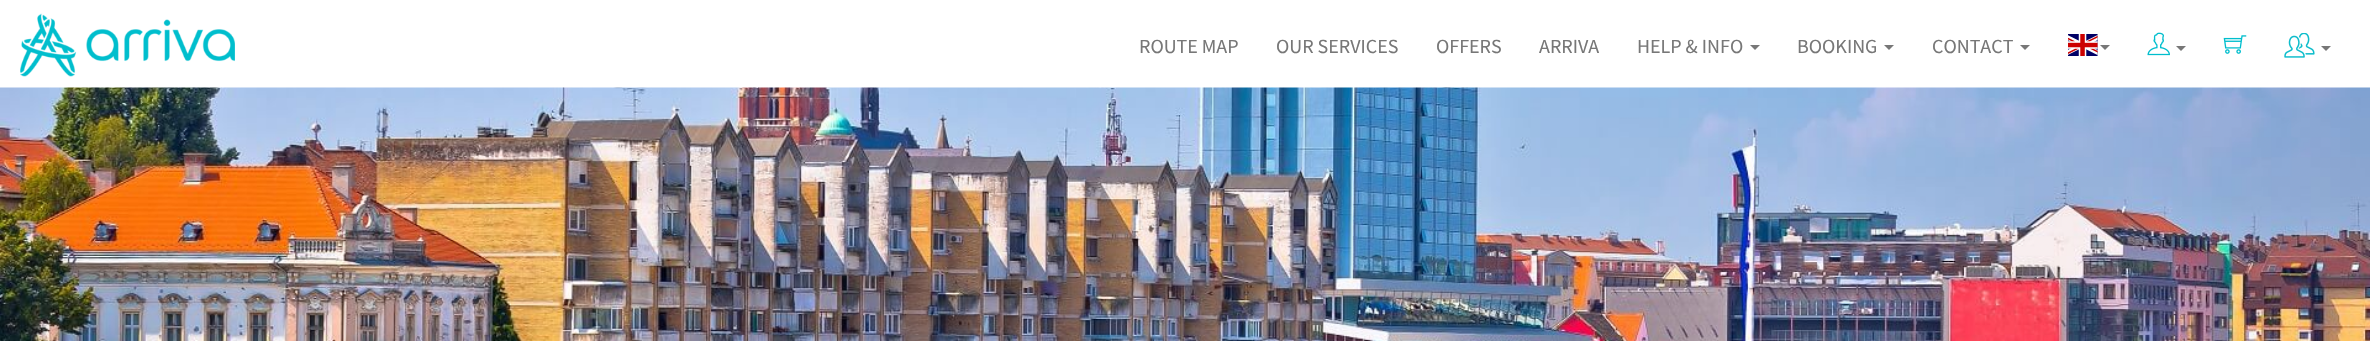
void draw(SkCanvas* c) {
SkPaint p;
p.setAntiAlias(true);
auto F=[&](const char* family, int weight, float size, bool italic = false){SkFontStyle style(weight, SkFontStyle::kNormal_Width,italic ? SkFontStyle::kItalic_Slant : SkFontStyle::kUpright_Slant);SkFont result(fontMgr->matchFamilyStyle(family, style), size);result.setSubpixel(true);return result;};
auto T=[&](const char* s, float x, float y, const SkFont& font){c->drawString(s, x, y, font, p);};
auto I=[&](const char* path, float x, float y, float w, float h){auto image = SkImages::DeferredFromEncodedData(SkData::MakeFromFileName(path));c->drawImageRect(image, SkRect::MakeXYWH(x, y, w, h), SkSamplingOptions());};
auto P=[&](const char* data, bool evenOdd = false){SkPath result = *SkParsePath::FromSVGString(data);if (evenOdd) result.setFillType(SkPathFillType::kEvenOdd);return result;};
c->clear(0xffffffff);
I("1.png",20,13,215,64);
auto f1 = F("Source Sans Pro",400,20);
p.setColor(0xff777777);
T("ROUTE MAP",1139,53,f1);
T("OUR SERVICES",1276,53,f1);
T("OFFERS",1436,53,f1);
T("ARRIVA",1539,53,f1);
T("HELP & INFO",1637,53,f1);
c->drawPath(P("M1750 45h10l-5 5z"),p);
T("BOOKING",1797,53,f1);
c->drawPath(P("M1884 45h10l-5 5z"),p);
T("CONTACT",1932,53,f1);
c->drawPath(P("M2020 45h10l-5 5z"),p);
I("2.png",2068,34,30,22);
c->drawPath(P("M2100 45h10l-5 5z"),p);
I("3.png",2147,32,23,24);
c->drawPath(P("M2176 46h10l-5 5z"),p);
I("4.png",2223,35,24,19);
I("5.png",2284,33,31,25);
c->drawPath(P("M2321 46h10l-5 5z"),p);
I("6.png",0,87,2370,254);
}
